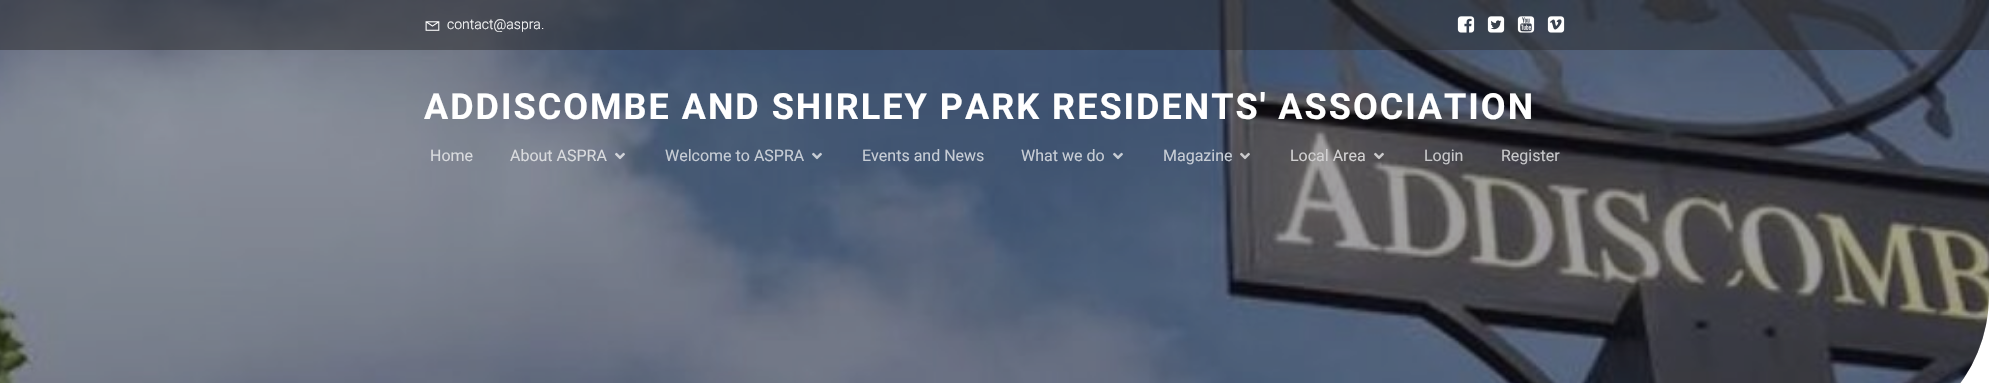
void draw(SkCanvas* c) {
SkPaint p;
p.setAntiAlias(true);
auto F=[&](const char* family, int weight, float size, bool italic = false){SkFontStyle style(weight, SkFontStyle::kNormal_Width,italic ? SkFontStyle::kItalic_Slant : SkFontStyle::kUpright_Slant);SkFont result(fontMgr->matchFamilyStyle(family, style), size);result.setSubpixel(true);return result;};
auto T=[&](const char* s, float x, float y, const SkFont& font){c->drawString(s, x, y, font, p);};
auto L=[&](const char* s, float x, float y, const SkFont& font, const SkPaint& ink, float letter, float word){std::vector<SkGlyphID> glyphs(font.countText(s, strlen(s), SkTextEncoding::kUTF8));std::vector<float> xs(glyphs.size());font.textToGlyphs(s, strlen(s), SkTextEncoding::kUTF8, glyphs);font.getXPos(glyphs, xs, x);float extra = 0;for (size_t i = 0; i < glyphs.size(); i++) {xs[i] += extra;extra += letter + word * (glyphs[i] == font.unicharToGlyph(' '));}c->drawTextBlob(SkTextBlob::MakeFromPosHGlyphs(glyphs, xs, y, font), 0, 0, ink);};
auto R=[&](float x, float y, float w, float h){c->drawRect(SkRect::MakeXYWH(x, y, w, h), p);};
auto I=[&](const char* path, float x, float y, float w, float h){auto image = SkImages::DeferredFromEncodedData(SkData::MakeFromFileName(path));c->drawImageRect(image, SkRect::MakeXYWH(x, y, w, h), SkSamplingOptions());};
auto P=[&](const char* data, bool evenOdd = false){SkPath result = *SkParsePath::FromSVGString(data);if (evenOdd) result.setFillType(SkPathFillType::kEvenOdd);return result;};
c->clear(0xffffffff);
I("1.png",0,0,1989,383);
p.setColor(0x66111219);
c->drawPath(P("M0 0h1989v295c0 83-67 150-150 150h-1839z"),p);
p.setColor(0x8027282a);
R(0,0,1989,50);
I("2.png",425,21,15,10);
auto f1 = F("Roboto",300,14);
p.setColor(0xffffffff);
T("contact@aspra.",447,29,f1);
I("3.png",1457,16,18,17);
I("4.png",1487,16,18,17);
I("5.png",1517,16,18,17);
I("6.png",1547,16,18,17);
auto f2 = F("Roboto",700,36);
L("ADDISCOMBE AND SHIRLEY PARK RESIDENTS' ASSOCIATION",424,119,f2,p,2,0);
auto f3 = F("Roboto",400,16);
p.setColor(0xffd9dbde);
T("Home",430,161,f3);
T("About ASPRA",510,161,f3);
I("7.png",615,152,10,8);
p.setColor(0xffc7cdd5);
T("Welcome to ASPRA",665,161,f3);
I("8.png",812,152,10,8);
T("Events and News",862,161,f3);
T("What we do",1021,161,f3);
I("9.png",1113,152,10,8);
T("Magazine",1163,161,f3);
I("10.png",1240,152,10,8);
p.setColor(0xffd2d1d2);
T("Local Area",1290,161,f3);
I("11.png",1374,152,10,8);
p.setColor(0xffc8c8ca);
T("Login",1424,161,f3);
T("Register",1501,161,f3);
}
